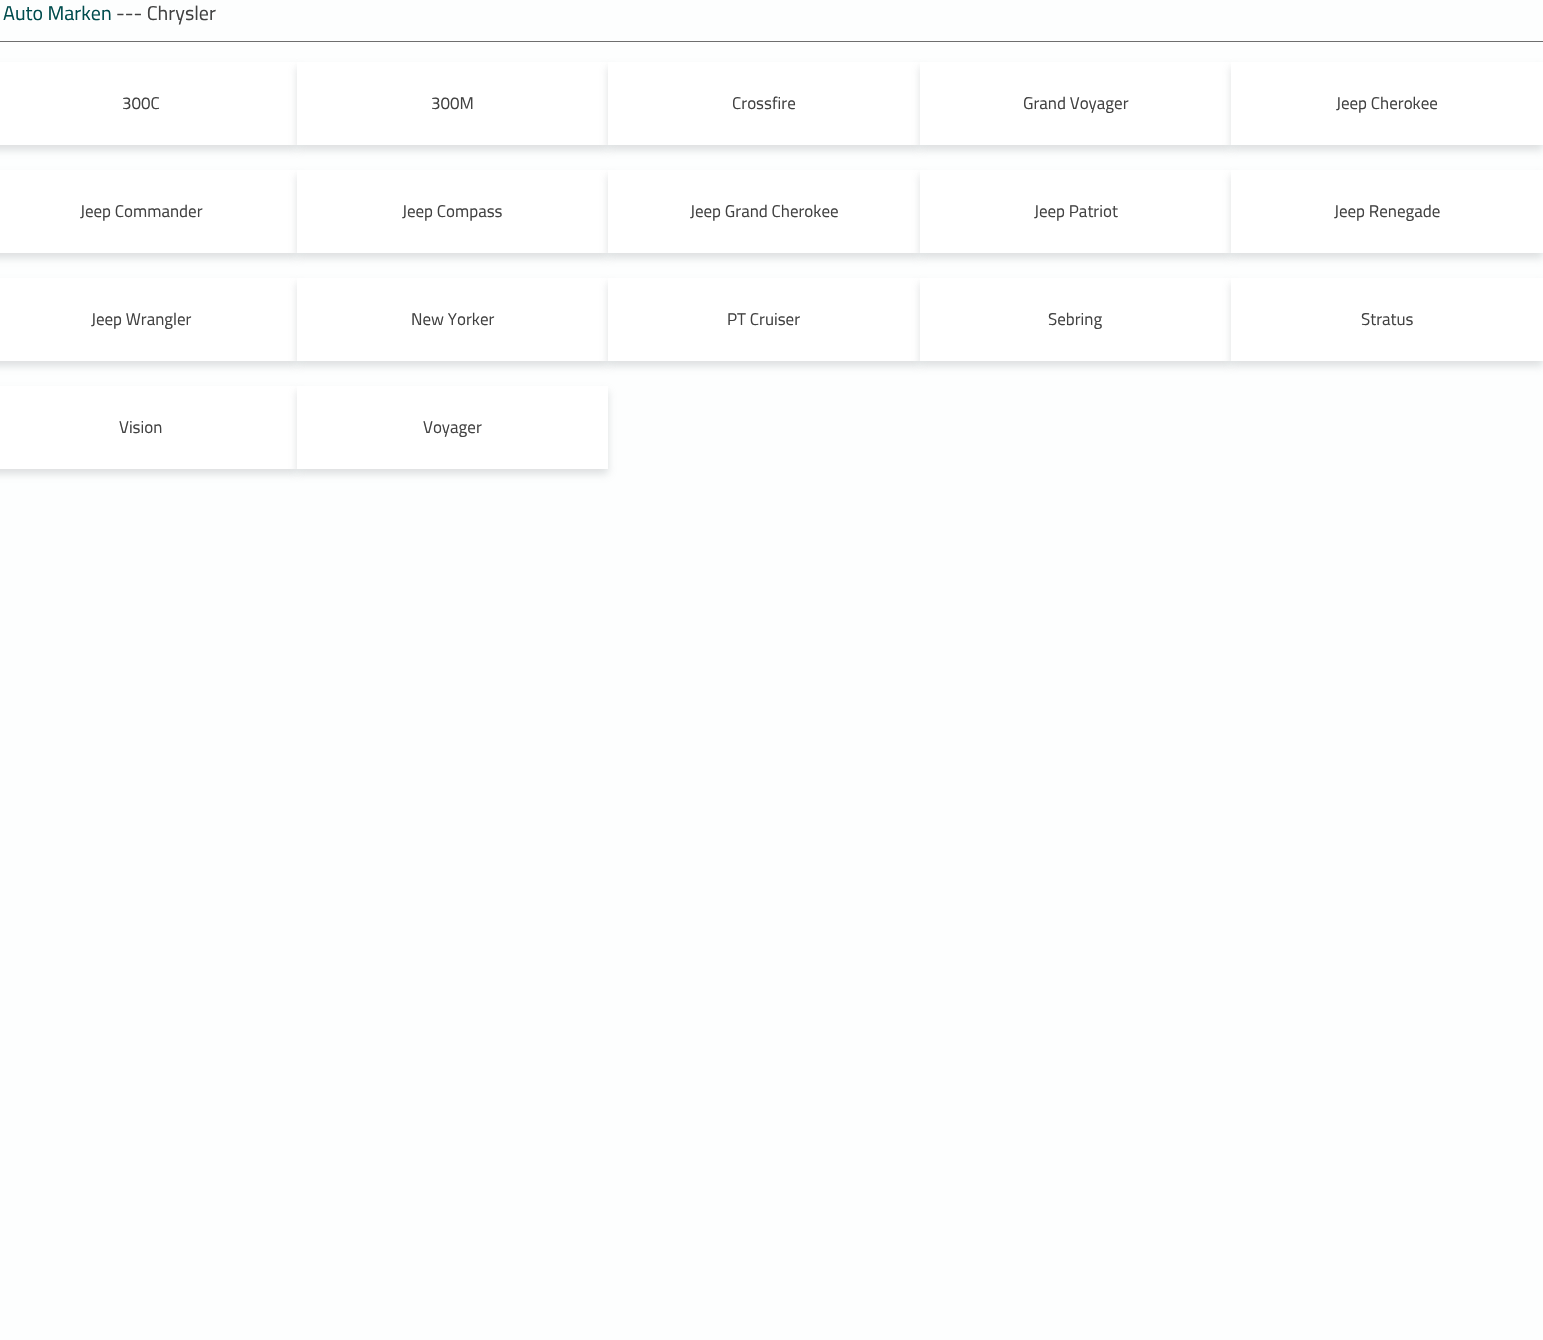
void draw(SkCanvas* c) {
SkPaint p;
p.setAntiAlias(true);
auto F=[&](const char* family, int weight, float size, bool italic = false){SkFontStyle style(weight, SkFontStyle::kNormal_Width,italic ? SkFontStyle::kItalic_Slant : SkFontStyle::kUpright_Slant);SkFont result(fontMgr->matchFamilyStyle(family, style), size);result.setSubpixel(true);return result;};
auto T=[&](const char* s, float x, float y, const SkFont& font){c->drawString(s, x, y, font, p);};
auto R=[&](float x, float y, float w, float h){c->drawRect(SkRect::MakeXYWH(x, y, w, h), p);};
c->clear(0xfffdfefe);
auto f1 = F("Titillium Web",400,20);
p.setColor(0xff004c4d);
T("Auto Marken",3,20,f1);
p.setColor(0xff414141);
T("--- Chrysler",116,20,f1);
p.setColor(0xff6e6e6e);
R(0,41,1543,1);
p.setColor(0x59a0a6a8);
p.setMaskFilter(SkMaskFilter::MakeBlur(kNormal_SkBlurStyle, 4));
c->drawRect(SkRect::MakeXYWH(-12,67,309,83),p);
p.setMaskFilter(nullptr);
p.setColor(0xffffffff);
R(0,62,297,83);
auto f2 = F("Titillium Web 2",400,17);
p.setColor(0xff414141);
T("300C",122,109,f2);
p.setColor(0x59a0a6a8);
p.setMaskFilter(SkMaskFilter::MakeBlur(kNormal_SkBlurStyle, 4));
c->drawRect(SkRect::MakeXYWH(297,67,311,83),p);
p.setMaskFilter(nullptr);
p.setColor(0xffffffff);
R(297,62,311,83);
p.setColor(0xff414141);
T("300M",431,109,f2);
p.setColor(0x59a0a6a8);
p.setMaskFilter(SkMaskFilter::MakeBlur(kNormal_SkBlurStyle, 4));
c->drawRect(SkRect::MakeXYWH(608,67,312,83),p);
p.setMaskFilter(nullptr);
p.setColor(0xffffffff);
R(608,62,312,83);
p.setColor(0xff414141);
T("Crossfire",732,109,f2);
p.setColor(0x59a0a6a8);
p.setMaskFilter(SkMaskFilter::MakeBlur(kNormal_SkBlurStyle, 4));
c->drawRect(SkRect::MakeXYWH(920,67,311,83),p);
p.setMaskFilter(nullptr);
p.setColor(0xffffffff);
R(920,62,311,83);
p.setColor(0xff414141);
T("Grand Voyager",1023,109,f2);
p.setColor(0x59a0a6a8);
p.setMaskFilter(SkMaskFilter::MakeBlur(kNormal_SkBlurStyle, 4));
c->drawRect(SkRect::MakeXYWH(1231,67,312,83),p);
p.setMaskFilter(nullptr);
p.setColor(0xffffffff);
R(1231,62,312,83);
p.setColor(0xff414141);
T("Jeep Cherokee",1336,109,f2);
p.setColor(0x59a0a6a8);
p.setMaskFilter(SkMaskFilter::MakeBlur(kNormal_SkBlurStyle, 4));
c->drawRect(SkRect::MakeXYWH(-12,175,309,83),p);
p.setMaskFilter(nullptr);
p.setColor(0xffffffff);
R(0,170,297,83);
p.setColor(0xff414141);
T("Jeep Commander",80,217,f2);
p.setColor(0x59a0a6a8);
p.setMaskFilter(SkMaskFilter::MakeBlur(kNormal_SkBlurStyle, 4));
c->drawRect(SkRect::MakeXYWH(297,175,311,83),p);
p.setMaskFilter(nullptr);
p.setColor(0xffffffff);
R(297,170,311,83);
p.setColor(0xff414141);
T("Jeep Compass",402,217,f2);
p.setColor(0x59a0a6a8);
p.setMaskFilter(SkMaskFilter::MakeBlur(kNormal_SkBlurStyle, 4));
c->drawRect(SkRect::MakeXYWH(608,175,312,83),p);
p.setMaskFilter(nullptr);
p.setColor(0xffffffff);
R(608,170,312,83);
p.setColor(0xff414141);
T("Jeep Grand Cherokee",690,217,f2);
p.setColor(0x59a0a6a8);
p.setMaskFilter(SkMaskFilter::MakeBlur(kNormal_SkBlurStyle, 4));
c->drawRect(SkRect::MakeXYWH(920,175,311,83),p);
p.setMaskFilter(nullptr);
p.setColor(0xffffffff);
R(920,170,311,83);
p.setColor(0xff414141);
T("Jeep Patriot",1034,217,f2);
p.setColor(0x59a0a6a8);
p.setMaskFilter(SkMaskFilter::MakeBlur(kNormal_SkBlurStyle, 4));
c->drawRect(SkRect::MakeXYWH(1231,175,312,83),p);
p.setMaskFilter(nullptr);
p.setColor(0xffffffff);
R(1231,170,312,83);
p.setColor(0xff414141);
T("Jeep Renegade",1334,217,f2);
p.setColor(0x59a0a6a8);
p.setMaskFilter(SkMaskFilter::MakeBlur(kNormal_SkBlurStyle, 4));
c->drawRect(SkRect::MakeXYWH(-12,283,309,83),p);
p.setMaskFilter(nullptr);
p.setColor(0xffffffff);
R(0,278,297,83);
p.setColor(0xff414141);
T("Jeep Wrangler",91,325,f2);
p.setColor(0x59a0a6a8);
p.setMaskFilter(SkMaskFilter::MakeBlur(kNormal_SkBlurStyle, 4));
c->drawRect(SkRect::MakeXYWH(297,283,311,83),p);
p.setMaskFilter(nullptr);
p.setColor(0xffffffff);
R(297,278,311,83);
p.setColor(0xff414141);
T("New Yorker",411,325,f2);
p.setColor(0x59a0a6a8);
p.setMaskFilter(SkMaskFilter::MakeBlur(kNormal_SkBlurStyle, 4));
c->drawRect(SkRect::MakeXYWH(608,283,312,83),p);
p.setMaskFilter(nullptr);
p.setColor(0xffffffff);
R(608,278,312,83);
p.setColor(0xff414141);
T("PT Cruiser",727,325,f2);
p.setColor(0x59a0a6a8);
p.setMaskFilter(SkMaskFilter::MakeBlur(kNormal_SkBlurStyle, 4));
c->drawRect(SkRect::MakeXYWH(920,283,311,83),p);
p.setMaskFilter(nullptr);
p.setColor(0xffffffff);
R(920,278,311,83);
p.setColor(0xff414141);
T("Sebring",1048,325,f2);
p.setColor(0x59a0a6a8);
p.setMaskFilter(SkMaskFilter::MakeBlur(kNormal_SkBlurStyle, 4));
c->drawRect(SkRect::MakeXYWH(1231,283,312,83),p);
p.setMaskFilter(nullptr);
p.setColor(0xffffffff);
R(1231,278,312,83);
p.setColor(0xff414141);
T("Stratus",1361,325,f2);
p.setColor(0x59a0a6a8);
p.setMaskFilter(SkMaskFilter::MakeBlur(kNormal_SkBlurStyle, 4));
c->drawRect(SkRect::MakeXYWH(-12,391,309,83),p);
p.setMaskFilter(nullptr);
p.setColor(0xffffffff);
R(0,386,297,83);
p.setColor(0xff414141);
T("Vision",119,433,f2);
p.setColor(0x59a0a6a8);
p.setMaskFilter(SkMaskFilter::MakeBlur(kNormal_SkBlurStyle, 4));
c->drawRect(SkRect::MakeXYWH(297,391,311,83),p);
p.setMaskFilter(nullptr);
p.setColor(0xffffffff);
R(297,386,311,83);
p.setColor(0xff414141);
T("Voyager",423,433,f2);
}
